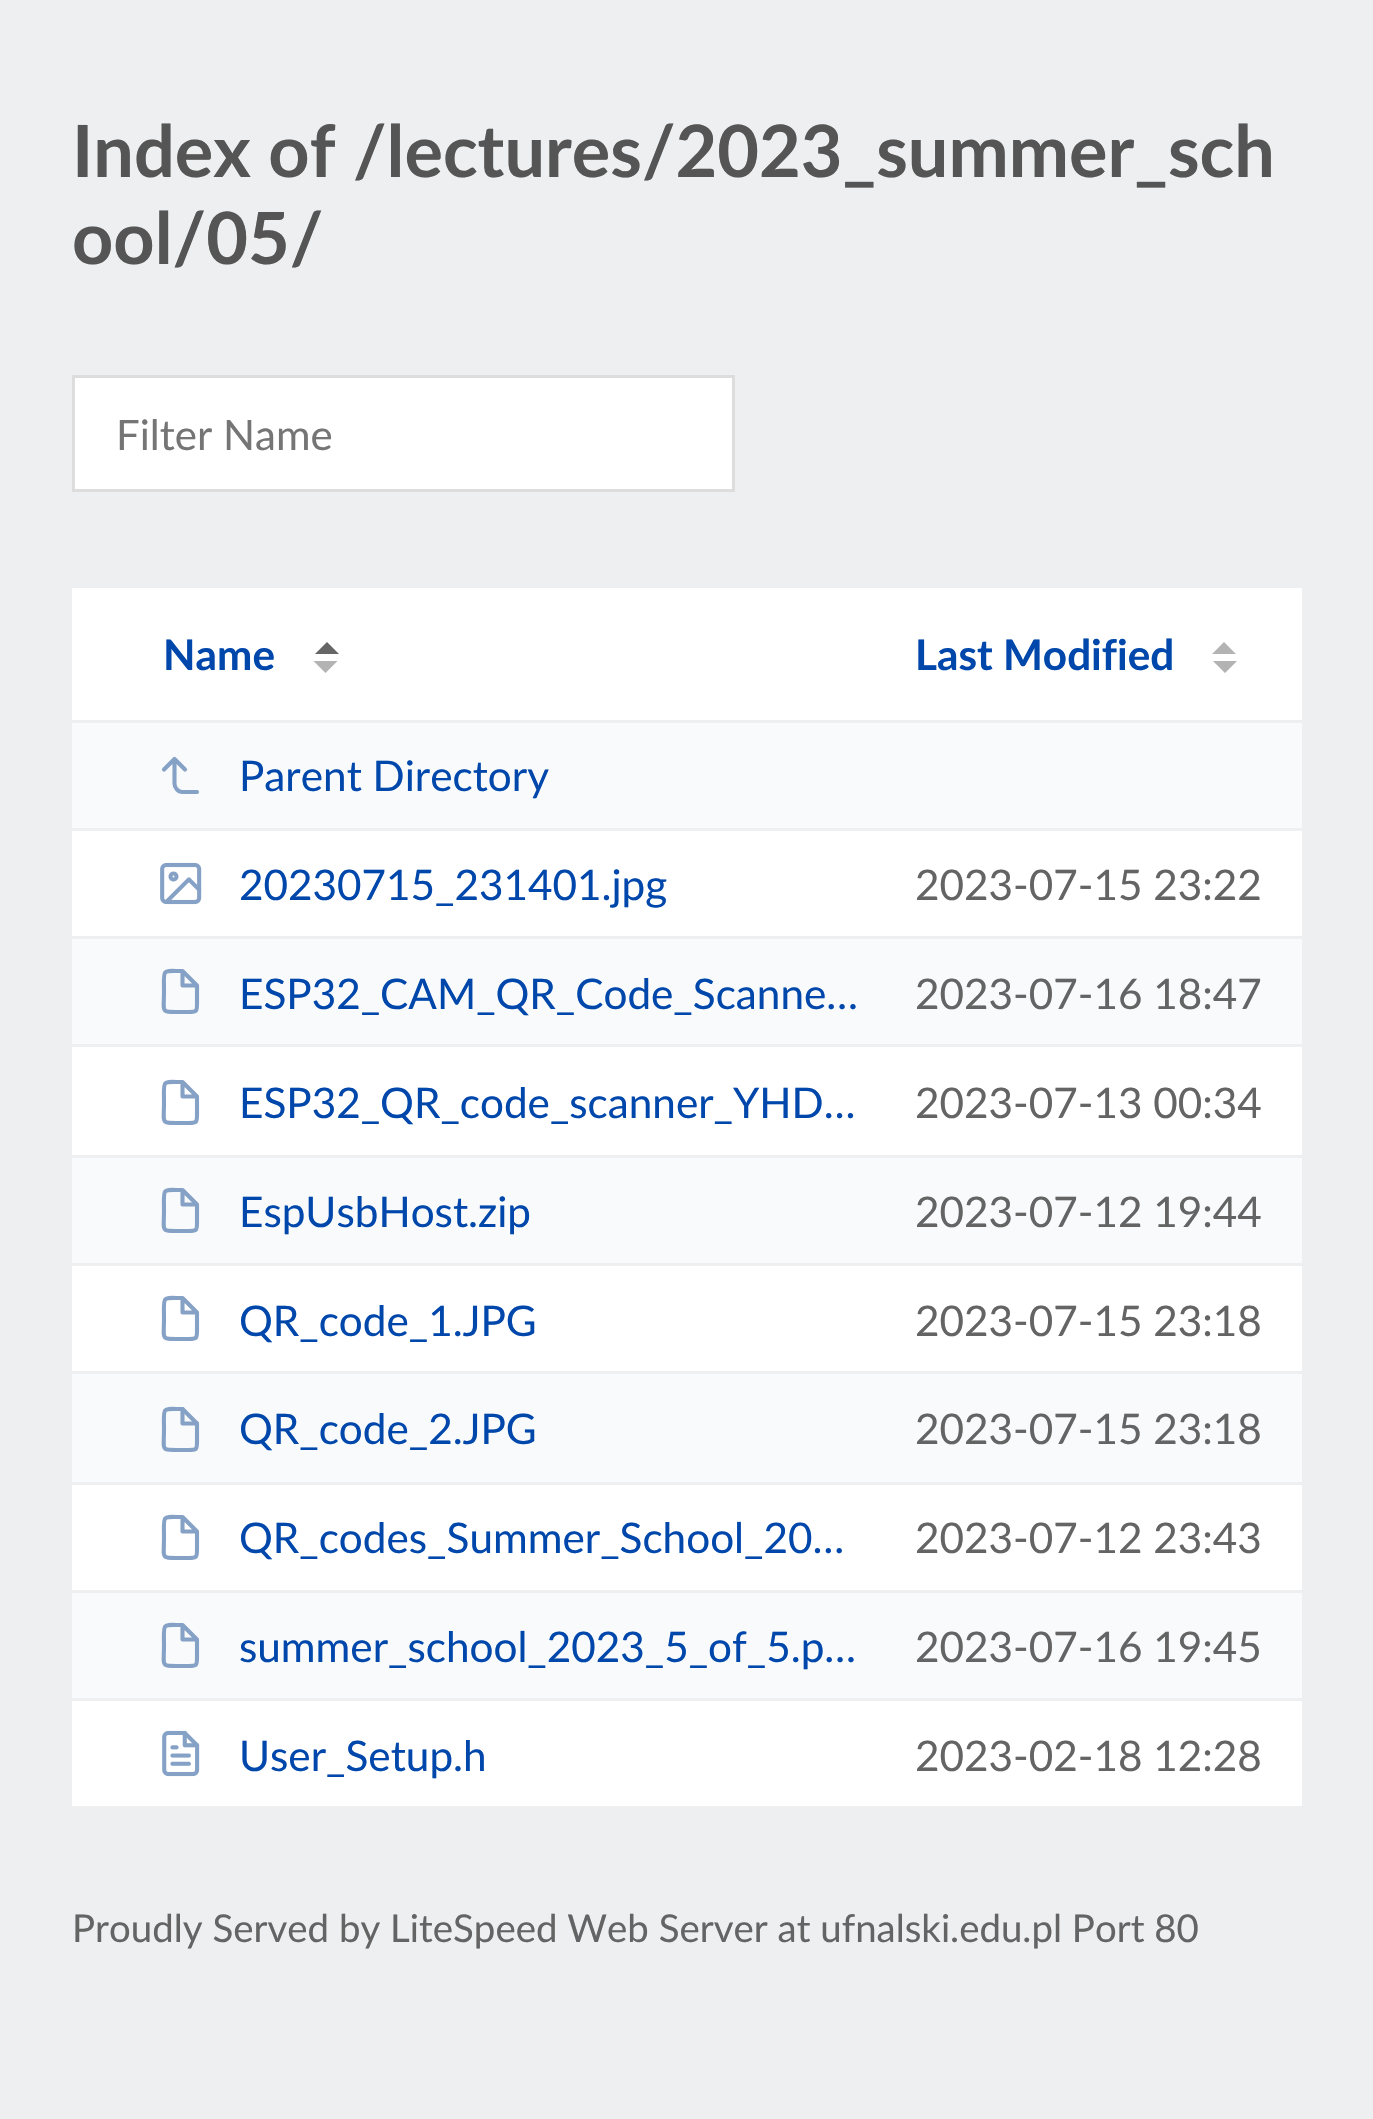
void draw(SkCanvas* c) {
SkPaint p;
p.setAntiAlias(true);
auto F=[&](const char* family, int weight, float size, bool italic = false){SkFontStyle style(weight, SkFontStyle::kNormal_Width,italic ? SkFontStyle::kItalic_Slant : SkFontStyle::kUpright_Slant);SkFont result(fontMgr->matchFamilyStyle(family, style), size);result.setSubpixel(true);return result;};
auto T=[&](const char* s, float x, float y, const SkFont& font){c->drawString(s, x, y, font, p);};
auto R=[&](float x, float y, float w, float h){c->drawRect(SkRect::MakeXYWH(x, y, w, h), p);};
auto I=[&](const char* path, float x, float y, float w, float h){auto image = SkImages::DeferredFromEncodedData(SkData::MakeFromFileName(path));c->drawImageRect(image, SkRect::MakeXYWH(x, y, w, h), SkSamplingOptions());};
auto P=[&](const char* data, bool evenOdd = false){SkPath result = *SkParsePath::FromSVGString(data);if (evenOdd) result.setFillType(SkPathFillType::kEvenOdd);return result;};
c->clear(0xffedeff0);
auto f1 = F("Lato",700,72);
p.setColor(0xff555555);
T("Index of /lectures/2023_summer_sch",72,177,f1);
T("ool/05/",72,264,f1);
p.setColor(0xffffffff);
c->drawRect(SkRect::MakeXYWH(73.5,376.5,660,114),p);
p.setStroke(true);
p.setStrokeWidth(3);
p.setColor(0xffdddddd);
c->drawRect(SkRect::MakeXYWH(73.5,376.5,660,114),p);
auto f2 = F("Lato",400,42);
p.setStroke(false);
p.setColor(0xff757575);
T("Filter Name",116,450,f2);
p.setColor(0xffffffff);
R(72,588,1230,1218);
auto f3 = F("Lato",700,42.25);
p.setColor(0xff0047ab);
T("Name",163,670,f3);
p.setColor(0xff666666);
c->drawPath(P("M339 654h-24l12-12z"),p);
p.setColor(0xffb3b3b3);
c->drawPath(P("M313.5 661h24l-12 12z"),p);
p.setColor(0xff0047ab);
T("Last Modified",915,670,f3);
p.setColor(0xffb3b3b3);
c->drawPath(P("M1236 654h-24l12-12zm-23 7h24l-12 12z"),p);
p.setColor(0xfff8fafb);
R(72,723,1230,105);
p.setColor(0xffedeff0);
R(72,720,1230,3);
R(72,828,1230,3);
p.setStroke(true);
p.setStrokeWidth(4.1);
p.setStrokeCap(SkPaint::kRound_Cap);
p.setStrokeJoin(SkPaint::kRound_Join);
p.setColor(0xff86a1c6);
c->drawPath(P("M185 769.5l-10.5-10.5l-10.5 10.5m33 22.5h-14.5c-4.5 0-8-4-8-8.5v-24.5"),p);
auto f4 = F("Lato",400,42.25);
p.setStroke(false);
p.setColor(0xff0047ab);
T("Parent Directory",239,791,f4);
I("1.png",160,862,42,43);
T("20230715_231401.jpg",239,900,f4);
p.setColor(0xff646464);
T("2023-07-15 23:22",915,900,f4);
p.setColor(0xfff8fafb);
R(72,939,1230,105);
p.setColor(0xffedeff0);
R(72,936,1230,3);
R(72,1044,1230,3);
p.setStroke(true);
p.setColor(0xff86a1c6);
c->drawPath(P("M182.5 971c-21.5 0-18.5-3-18.5 20.5c0 22-4 20.5 16.5 20.5h8.5c7.5 0 8-.5 8-8v-18.5zm0 0v14.5h14.5"),p);
p.setStroke(false);
p.setColor(0xff0047ab);
T("ESP32_CAM_QR_Code_Scanne…",239,1009,f4);
p.setColor(0xff646464);
T("2023-07-16 18:47",915,1009,f4);
p.setStroke(true);
p.setColor(0xff86a1c6);
c->drawPath(P("M182.5 1082c-21.5 0-18.5-3-18.5 20.5c0 22-4 20.5 16.5 20.5h8.5c7.5 0 8-.5 8-8v-18.5zm0 0v14.5h14.5"),p);
p.setStroke(false);
p.setColor(0xff0047ab);
T("ESP32_QR_code_scanner_YHD…",239,1118,f4);
p.setColor(0xff646464);
T("2023-07-13 00:34",915,1118,f4);
p.setColor(0xfff8fafb);
R(72,1158,1230,105);
p.setColor(0xffedeff0);
R(72,1155,1230,3);
R(72,1263,1230,3);
p.setStroke(true);
p.setColor(0xff86a1c6);
c->drawPath(P("M182.5 1190c-21.5 0-18.5-3-18.5 20.5c0 22-4 20.5 16.5 20.5h8.5c7.5 0 8-.5 8-8v-18.5zm0 0v14.5h14.5"),p);
p.setStroke(false);
p.setColor(0xff0047ab);
T("EspUsbHost.zip",239,1227,f4);
p.setColor(0xff646464);
T("2023-07-12 19:44",915,1227,f4);
p.setStroke(true);
p.setColor(0xff86a1c6);
c->drawPath(P("M182.5 1298c-21.5 0-18.5-3-18.5 20.5c0 22-4 20.5 16.5 20.5h8.5c7.5 0 8-.5 8-8v-18.5zm0 0v14.5h14.5"),p);
p.setStroke(false);
p.setColor(0xff0047ab);
T("QR_code_1.JPG",239,1336,f4);
p.setColor(0xff646464);
T("2023-07-15 23:18",915,1336,f4);
p.setColor(0xfff8fafb);
R(72,1374,1230,108);
p.setColor(0xffedeff0);
R(72,1371,1230,3);
R(72,1482,1230,3);
c->save();
c->clipRect(SkRect::MakeXYWH(156,1404,51,48));
p.setStroke(true);
p.setColor(0xff86a1c6);
c->drawPath(P("M182.5 1409c-21.5 0-18.5-3-18.5 20.5c0 22-4 20.5 16.5 20.5h8.5c7.5 0 8-.5 8-8v-18.5z"),p);
c->restore();
c->drawPath(P("M182.5 1409v14.5h14.5"),p);
p.setStroke(false);
p.setColor(0xff0047ab);
T("QR_code_2.JPG",239,1444,f4);
p.setColor(0xff646464);
T("2023-07-15 23:18",915,1444,f4);
p.setStroke(true);
p.setColor(0xff86a1c6);
c->drawPath(P("M182.5 1517c-21.5 0-18.5-3-18.5 20.5c0 22-4 20.5 16.5 20.5h8.5c7.5 0 8-.5 8-8v-18.5zm0 0v14.5h14.5"),p);
p.setStroke(false);
p.setColor(0xff0047ab);
T("QR_codes_Summer_School_20…",239,1553,f4);
p.setColor(0xff646464);
T("2023-07-12 23:43",915,1553,f4);
p.setColor(0xfff8fafb);
R(72,1593,1230,105);
p.setColor(0xffedeff0);
R(72,1590,1230,3);
R(72,1698,1230,3);
p.setStroke(true);
p.setColor(0xff86a1c6);
c->drawPath(P("M182.5 1625c-21.5 0-18.5-3-18.5 20.5c0 22-4 20.5 16.5 20.5h8.5c7.5 0 8-.5 8-8v-18.5zm0 0v14.5h14.5"),p);
p.setStroke(false);
p.setColor(0xff0047ab);
T("summer_school_2023_5_of_5.p…",239,1662,f4);
p.setColor(0xff646464);
T("2023-07-16 19:45",915,1662,f4);
I("2.png",162,1730,38,47);
p.setColor(0xff0047ab);
T("User_Setup.h",239,1771,f4);
p.setColor(0xff646464);
T("2023-02-18 12:28",915,1771,f4);
auto f5 = F("Lato",400,38.4);
T("Proudly Served by LiteSpeed Web Server at ufnalski.edu.pl Port 80",72,1942,f5);
}
